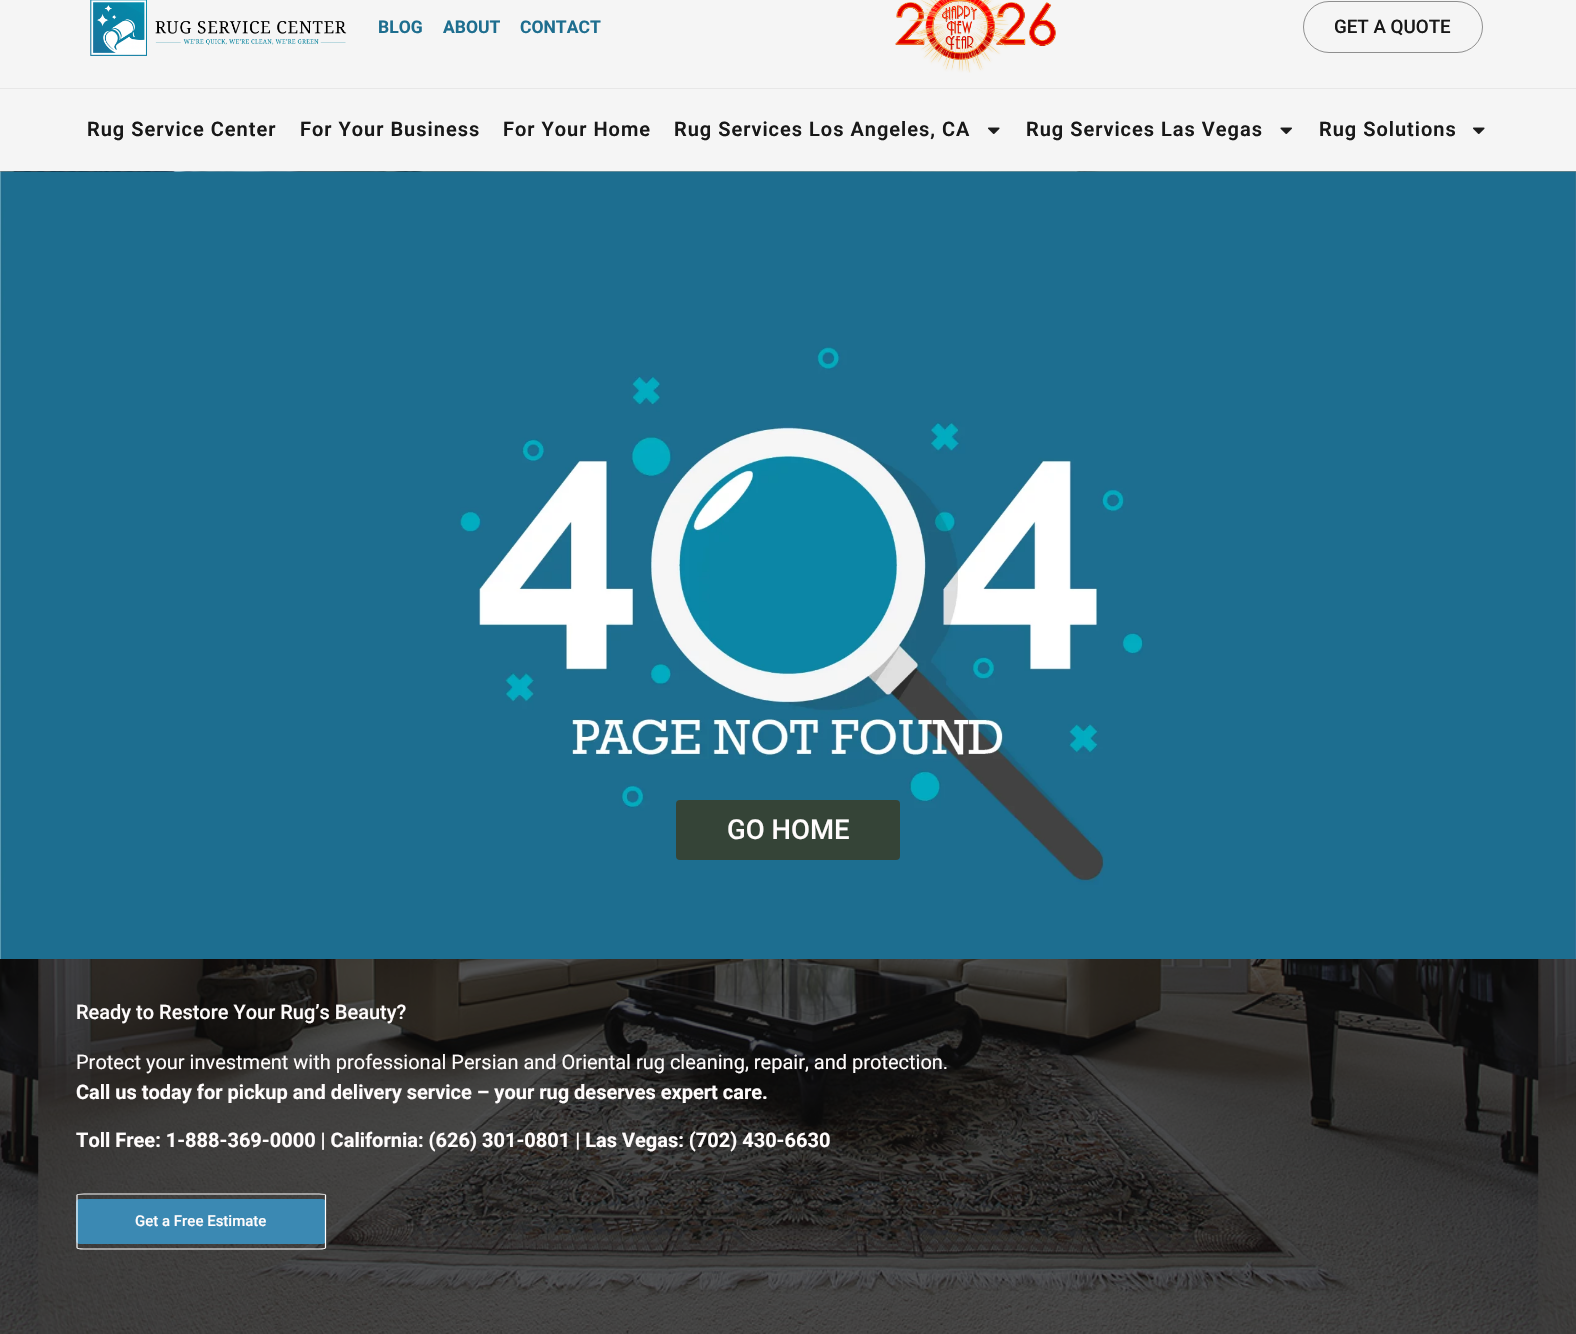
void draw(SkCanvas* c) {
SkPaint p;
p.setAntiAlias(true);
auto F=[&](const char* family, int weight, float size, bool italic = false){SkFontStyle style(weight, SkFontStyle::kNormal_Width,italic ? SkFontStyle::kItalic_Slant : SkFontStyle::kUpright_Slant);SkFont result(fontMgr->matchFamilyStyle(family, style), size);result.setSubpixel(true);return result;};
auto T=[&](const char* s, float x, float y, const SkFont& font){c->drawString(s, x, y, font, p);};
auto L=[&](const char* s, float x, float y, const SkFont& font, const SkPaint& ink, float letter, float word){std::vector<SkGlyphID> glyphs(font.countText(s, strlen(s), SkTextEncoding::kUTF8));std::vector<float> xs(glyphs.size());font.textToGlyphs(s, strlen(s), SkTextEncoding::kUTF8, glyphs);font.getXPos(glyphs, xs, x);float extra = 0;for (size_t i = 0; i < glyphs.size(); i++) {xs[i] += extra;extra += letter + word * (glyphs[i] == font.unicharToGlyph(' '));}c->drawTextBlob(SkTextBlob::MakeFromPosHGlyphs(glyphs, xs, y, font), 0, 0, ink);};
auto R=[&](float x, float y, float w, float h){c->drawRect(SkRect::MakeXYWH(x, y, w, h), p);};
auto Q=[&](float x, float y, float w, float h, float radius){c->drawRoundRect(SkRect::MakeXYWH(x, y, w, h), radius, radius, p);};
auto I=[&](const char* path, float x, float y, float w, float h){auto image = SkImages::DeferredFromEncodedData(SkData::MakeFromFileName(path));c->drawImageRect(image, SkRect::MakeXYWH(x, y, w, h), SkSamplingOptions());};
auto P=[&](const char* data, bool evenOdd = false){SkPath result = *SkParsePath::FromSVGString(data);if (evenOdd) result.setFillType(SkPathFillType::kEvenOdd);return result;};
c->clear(0xffffffff);
I("1.png",0,171,1576,1);
p.setColor(0xfff5f5f5);
R(0,0,1576,88);
I("2.png",90,0,257,56);
auto f1 = F("Roboto",700,17.5);
p.setColor(0xff1e6e8f);
T("BLOG",378,33,f1);
T("ABOUT",443,33,f1);
T("CONTACT",520,33,f1);
I("3.png",895,0,161,73);
p.setStroke(true);
p.setStrokeWidth(1);
p.setColor(0xff8f8f8f);
c->drawRoundRect(SkRect::MakeXYWH(1303.5,1.5,179,51),25.5,25.5,p);
auto f2 = F("Roboto",500,18.75);
p.setStroke(false);
p.setColor(0xff181818);
T("GET A QUOTE",1334,33,f2);
p.setColor(0xfff5f5f5);
R(0,89,1576,82);
p.setColor(0xffe7e7e7);
R(0,88,1576,1);
auto f3 = F("Roboto",600,20);
p.setColor(0xff181818);
L("Rug Service Center",87,136,f3,p,1,0);
L("For Your Business",300,136,f3,p,1,0);
L("For Your Home",503,136,f3,p,1,0);
L("Rug Services Los Angeles, CA",674,136,f3,p,1,0);
I("4.png",988,127,12,7);
L("Rug Services Las Vegas",1026,136,f3,p,1,0);
I("5.png",1280,127,12,7);
L("Rug Solutions",1319,136,f3,p,1,0);
I("4.png",1473,127,12,7);
I("6.png",0,171,1576,788);
p.setColor(0xff354437);
Q(676,800,224,60,4);
auto f4 = F("Roboto",500,27.5);
p.setColor(0xfffffcfc);
T("GO HOME",727,839,f4);
I("7.png",0,959,1576,375);
auto f5 = F("Roboto",500,20);
T("Ready to Restore Your Rug’s Beauty?",76,1019,f5);
auto f6 = F("Roboto",400,20);
T("Protect your investment with professional Persian and Oriental rug cleaning, repair, and protection.",76,1069,f6);
auto f7 = F("Roboto",700,20);
T("Call us today for pickup and delivery service – your rug deserves expert care.",76,1099,f7);
T("Toll Free: 1-888-369-0000 | California: (626) 301-0801 | Las Vegas: (702) 430-6630",76,1147,f7);
p.setColor(0xff3b89b3);
Q(76,1199,250,45,4);
auto f8 = F("Roboto",500,15);
p.setColor(0xfffffcfc);
T("Get a Free Estimate",135,1226,f8);
p.setStroke(true);
p.setStrokeWidth(1.2);
p.setColor(0xffffffff);
c->drawPath(P("M84 1194h235c3.5 0 6.5 0 6.5 1v52.5c0 1-3 1.5-6.5 1.5h-235c-4 0-7-.5-7-1.5v-52.5c0-1 3-1 7-1z"),p);
}
